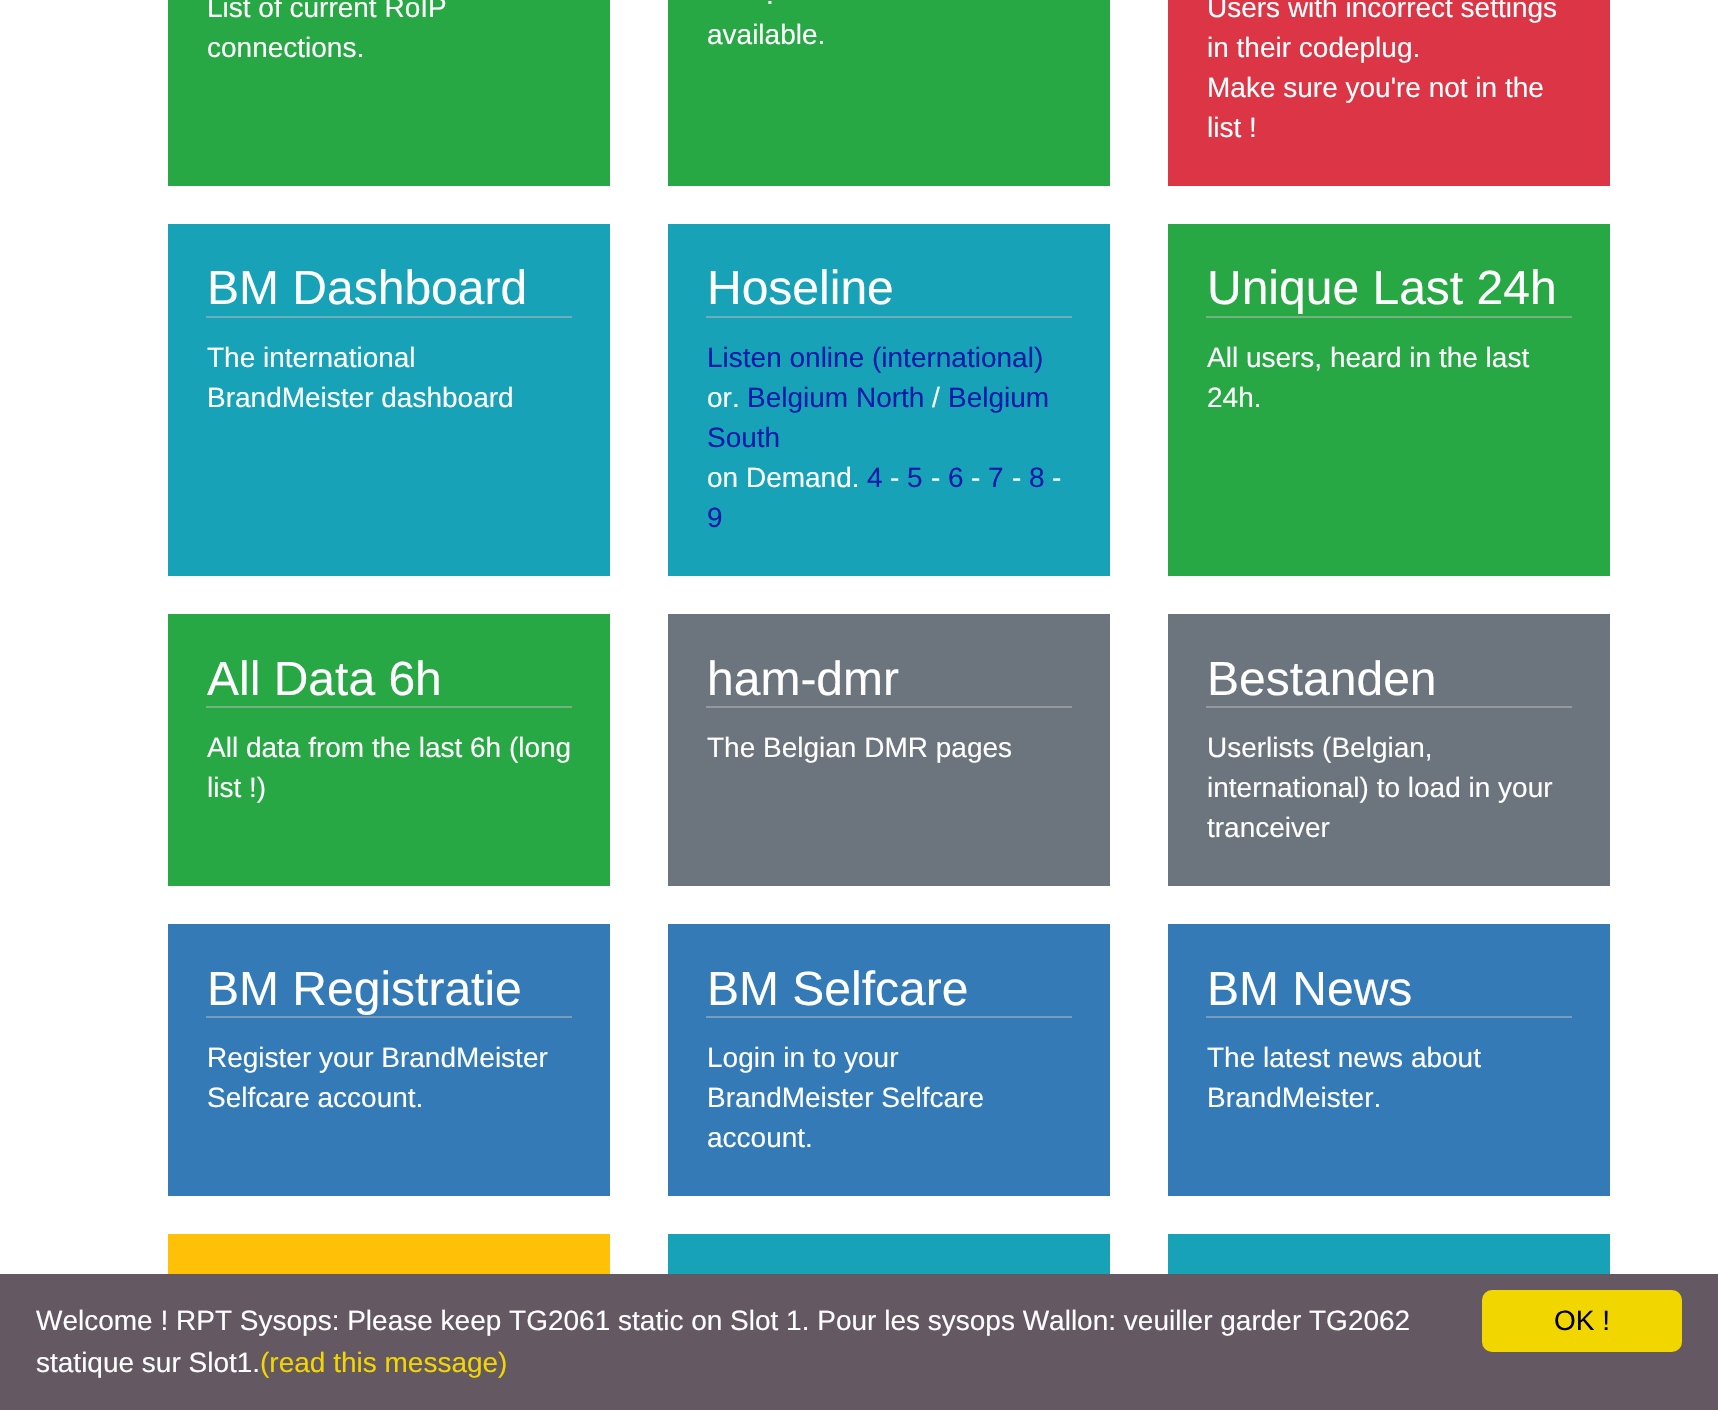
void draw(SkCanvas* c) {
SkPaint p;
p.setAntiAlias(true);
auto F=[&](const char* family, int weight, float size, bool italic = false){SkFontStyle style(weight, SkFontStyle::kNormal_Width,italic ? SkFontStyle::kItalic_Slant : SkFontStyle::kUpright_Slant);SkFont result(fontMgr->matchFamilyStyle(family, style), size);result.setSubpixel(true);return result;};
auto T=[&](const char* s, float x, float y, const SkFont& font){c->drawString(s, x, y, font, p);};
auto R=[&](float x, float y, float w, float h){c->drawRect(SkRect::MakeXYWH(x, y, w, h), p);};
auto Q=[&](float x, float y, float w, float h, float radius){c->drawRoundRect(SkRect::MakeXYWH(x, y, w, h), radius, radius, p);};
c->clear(0xffffffff);
p.setColor(0xff28a745);
R(168,0,442,186);
auto f1 = F("Liberation Sans",400,28);
p.setColor(0xffffffff);
T("List of current RoIP",207,17,f1);
T("connections.",207,57,f1);
p.setColor(0xff28a745);
R(668,0,442,186);
p.setColor(0xffffffff);
T(".",766,4,f1);
T("available.",707,44,f1);
p.setColor(0xffdc3545);
R(1168,0,442,186);
p.setColor(0xffffffff);
T("Users with incorrect settings",1207,17,f1);
T("in their codeplug.",1207,57,f1);
T("Make sure you're not in the",1207,97,f1);
T("list !",1207,137,f1);
p.setColor(0xff17a2b8);
R(168,224,442,352);
p.setColor(0xff6ab0bb);
R(206,316,366,2);
auto f2 = F("Liberation Sans",400,48);
p.setColor(0xffffffff);
T("BM Dashboard",207,304,f2);
T("The international",207,367,f1);
T("BrandMeister dashboard",207,407,f1);
p.setColor(0xff17a2b8);
R(668,224,442,352);
p.setColor(0xff6ab0bb);
R(706,316,366,2);
p.setColor(0xffffffff);
T("Hoseline",707,304,f2);
p.setColor(0xff001aaa);
T("Listen online (international)",707,367,f1);
p.setColor(0xffffffff);
T("or.",707,407,f1);
p.setColor(0xff001aaa);
T("Belgium North",747,407,f1);
p.setColor(0xffffffff);
T("/",932,407,f1);
p.setColor(0xff001aaa);
T("Belgium",948,407,f1);
T("South",707,447,f1);
p.setColor(0xffffffff);
T("on Demand.",707,487,f1);
p.setColor(0xff001aaa);
T("4",867,487,f1);
p.setColor(0xffffffff);
T("-",890,487,f1);
p.setColor(0xff001aaa);
T("5",907,487,f1);
p.setColor(0xffffffff);
T("-",931,487,f1);
p.setColor(0xff001aaa);
T("6",948,487,f1);
p.setColor(0xffffffff);
T("-",971,487,f1);
p.setColor(0xff001aaa);
T("7",988,487,f1);
p.setColor(0xffffffff);
T("-",1012,487,f1);
p.setColor(0xff001aaa);
T("8",1029,487,f1);
p.setColor(0xffffffff);
T("-",1052,487,f1);
p.setColor(0xff001aaa);
T("9",707,527,f1);
p.setColor(0xff28a745);
R(1168,224,442,352);
p.setColor(0xff73b281);
R(1206,316,366,2);
p.setColor(0xffffffff);
T("Unique Last 24h",1207,304,f2);
T("All users, heard in the last",1207,367,f1);
T("24h.",1207,407,f1);
p.setColor(0xff28a745);
R(168,614,442,272);
p.setColor(0xff73b281);
R(206,706,366,2);
p.setColor(0xffffffff);
T("All Data 6h",207,695,f2);
T("All data from the last 6h (long",207,757,f1);
T("list !)",207,797,f1);
p.setColor(0xff6c757d);
R(668,614,442,272);
p.setColor(0xff95999d);
R(706,706,366,2);
p.setColor(0xffffffff);
T("ham-dmr",707,695,f2);
T("The Belgian DMR pages",707,757,f1);
p.setColor(0xff6c757d);
R(1168,614,442,272);
p.setColor(0xff95999d);
R(1206,706,366,2);
p.setColor(0xffffffff);
T("Bestanden",1207,695,f2);
T("Userlists (Belgian,",1207,757,f1);
T("international) to load in your",1207,797,f1);
T("tranceiver",1207,837,f1);
p.setColor(0xff337ab7);
R(168,924,442,272);
p.setColor(0xff789cba);
R(206,1016,366,2);
p.setColor(0xffffffff);
T("BM Registratie",207,1005,f2);
T("Register your BrandMeister",207,1067,f1);
T("Selfcare account.",207,1107,f1);
p.setColor(0xff337ab7);
R(668,924,442,272);
p.setColor(0xff789cba);
R(706,1016,366,2);
p.setColor(0xffffffff);
T("BM Selfcare",707,1005,f2);
T("Login in to your",707,1067,f1);
T("BrandMeister Selfcare",707,1107,f1);
T("account.",707,1147,f1);
p.setColor(0xff337ab7);
R(1168,924,442,272);
p.setColor(0xff789cba);
R(1206,1016,366,2);
p.setColor(0xffffffff);
T("BM News",1207,1005,f2);
T("The latest news about",1207,1067,f1);
T("BrandMeister.",1207,1107,f1);
p.setColor(0xffffc107);
R(168,1234,442,40);
p.setColor(0xff17a2b8);
R(668,1234,442,40);
R(1168,1234,442,40);
p.setColor(0xff645862);
R(0,1274,1718,136);
p.setColor(0xffffffff);
T("Welcome ! RPT Sysops: Please keep TG2061 static on Slot 1. Pour les sysops Wallon: veuiller garder TG2062",36,1330,f1);
T("statique sur Slot1.",36,1372,f1);
p.setColor(0xfff1d600);
T("(read this message)",260,1372,f1);
Q(1482,1290,200,62,10);
p.setColor(0xff000000);
T("OK !",1554,1330,f1);
}
